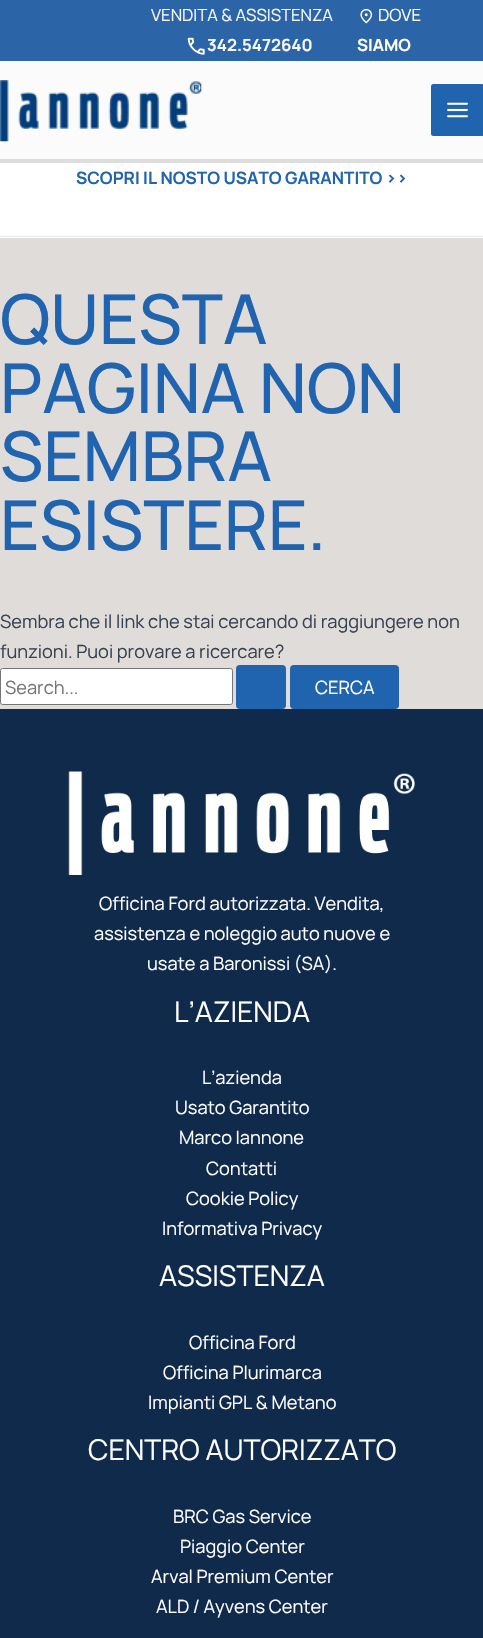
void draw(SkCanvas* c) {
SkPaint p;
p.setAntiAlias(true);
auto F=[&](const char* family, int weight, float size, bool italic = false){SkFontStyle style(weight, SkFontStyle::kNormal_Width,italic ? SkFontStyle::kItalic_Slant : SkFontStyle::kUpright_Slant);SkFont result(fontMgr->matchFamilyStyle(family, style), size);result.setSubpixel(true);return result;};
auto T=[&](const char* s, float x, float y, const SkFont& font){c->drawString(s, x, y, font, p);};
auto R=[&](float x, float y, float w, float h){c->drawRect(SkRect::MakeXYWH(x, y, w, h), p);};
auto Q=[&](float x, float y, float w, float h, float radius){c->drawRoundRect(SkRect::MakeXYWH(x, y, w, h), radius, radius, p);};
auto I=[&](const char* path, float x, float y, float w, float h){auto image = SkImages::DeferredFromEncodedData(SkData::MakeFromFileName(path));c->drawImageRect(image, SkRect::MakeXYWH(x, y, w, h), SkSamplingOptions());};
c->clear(0xffe0dcda);
p.setColor(0xff2b64a7);
R(0,0,483,61);
auto f1 = F("Manrope",400,16.75);
p.setColor(0xfff7f7f7);
T("VENDITA & ASSISTENZA",151,21,f1);
I("1.png",187,37,18,18);
auto f2 = F("Manrope",700,16.75);
T("342.5472640",207,51,f2);
I("2.png",360,9,13,15);
p.setColor(0xffffffff);
T("DOVE",378,21,f1);
T("SIAMO",357,51,f2);
p.setColor(0xfffbfbfb);
R(0,61,483,98);
p.setColor(0xffdddddd);
R(0,159,483,4);
I("3.png",0,80,202,62);
p.setColor(0xff2063af);
Q(431,84,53,52,2.5);
I("4.png",447,102,21,16);
p.setColor(0xffffffff);
R(0,163,483,75);
p.setColor(0xffeaeaea);
R(0,236,483,1);
auto f3 = F("Manrope",700,17.1);
p.setColor(0xff2063af);
T("SCOPRI IL NOSTO USATO GARANTITO >>",76,184,f3);
auto f4 = F("Manrope",500,68.75);
T("QUESTA",0,344,f4);
T("PAGINA NON",0,413,f4);
T("SEMBRA",0,481,f4);
T("ESISTERE.",0,550,f4);
auto f5 = F("Manrope",400,18.25);
p.setColor(0xff364151);
T("Sembra che il link che stai cercando di raggiungere non",0,628,f5);
T("funzioni. Puoi provare a ricercare?",0,658,f5);
p.setColor(0xffffffff);
c->drawRoundRect(SkRect::MakeXYWH(.5,668.5,232,36),2,2,p);
p.setStroke(true);
p.setStrokeWidth(1);
p.setColor(0xff767676);
c->drawRoundRect(SkRect::MakeXYWH(.5,668.5,232,36),2,2,p);
p.setStroke(false);
p.setColor(0xff757575);
T("Search...",5,694,f5);
p.setColor(0xff2063af);
Q(236,665,50,44,4);
Q(290,665,109,44,4);
p.setColor(0xffffffff);
T("CERCA",315,694,f5);
p.setColor(0xff102a4b);
R(0,709,483,929);
I("5.png",68,771,347,104);
p.setColor(0xffffffff);
T("Officina Ford autorizzata. Vendita,",99,910,f5);
T("assistenza e noleggio auto nuove e",94,940,f5);
T("usate a Baronissi (SA).",147,970,f5);
auto f6 = F("Manrope",400,28.5);
T("L’AZIENDA",174,1022,f6);
T("L’azienda",202,1084,f5);
T("Usato Garantito",175,1114,f5);
T("Marco Iannone",179,1144,f5);
T("Contatti",206,1175,f5);
T("Cookie Policy",186,1205,f5);
T("Informativa Privacy",162,1235,f5);
T("ASSISTENZA",159,1286,f6);
T("Officina Ford",189,1349,f5);
T("Officina Plurimarca",163,1379,f5);
T("Impianti GPL & Metano",148,1409,f5);
T("CENTRO AUTORIZZATO",88,1460,f6);
T("BRC Gas Service",173,1523,f5);
T("Piaggio Center",180,1553,f5);
T("Arval Premium Center",151,1583,f5);
T("ALD / Ayvens Center",156,1613,f5);
}
